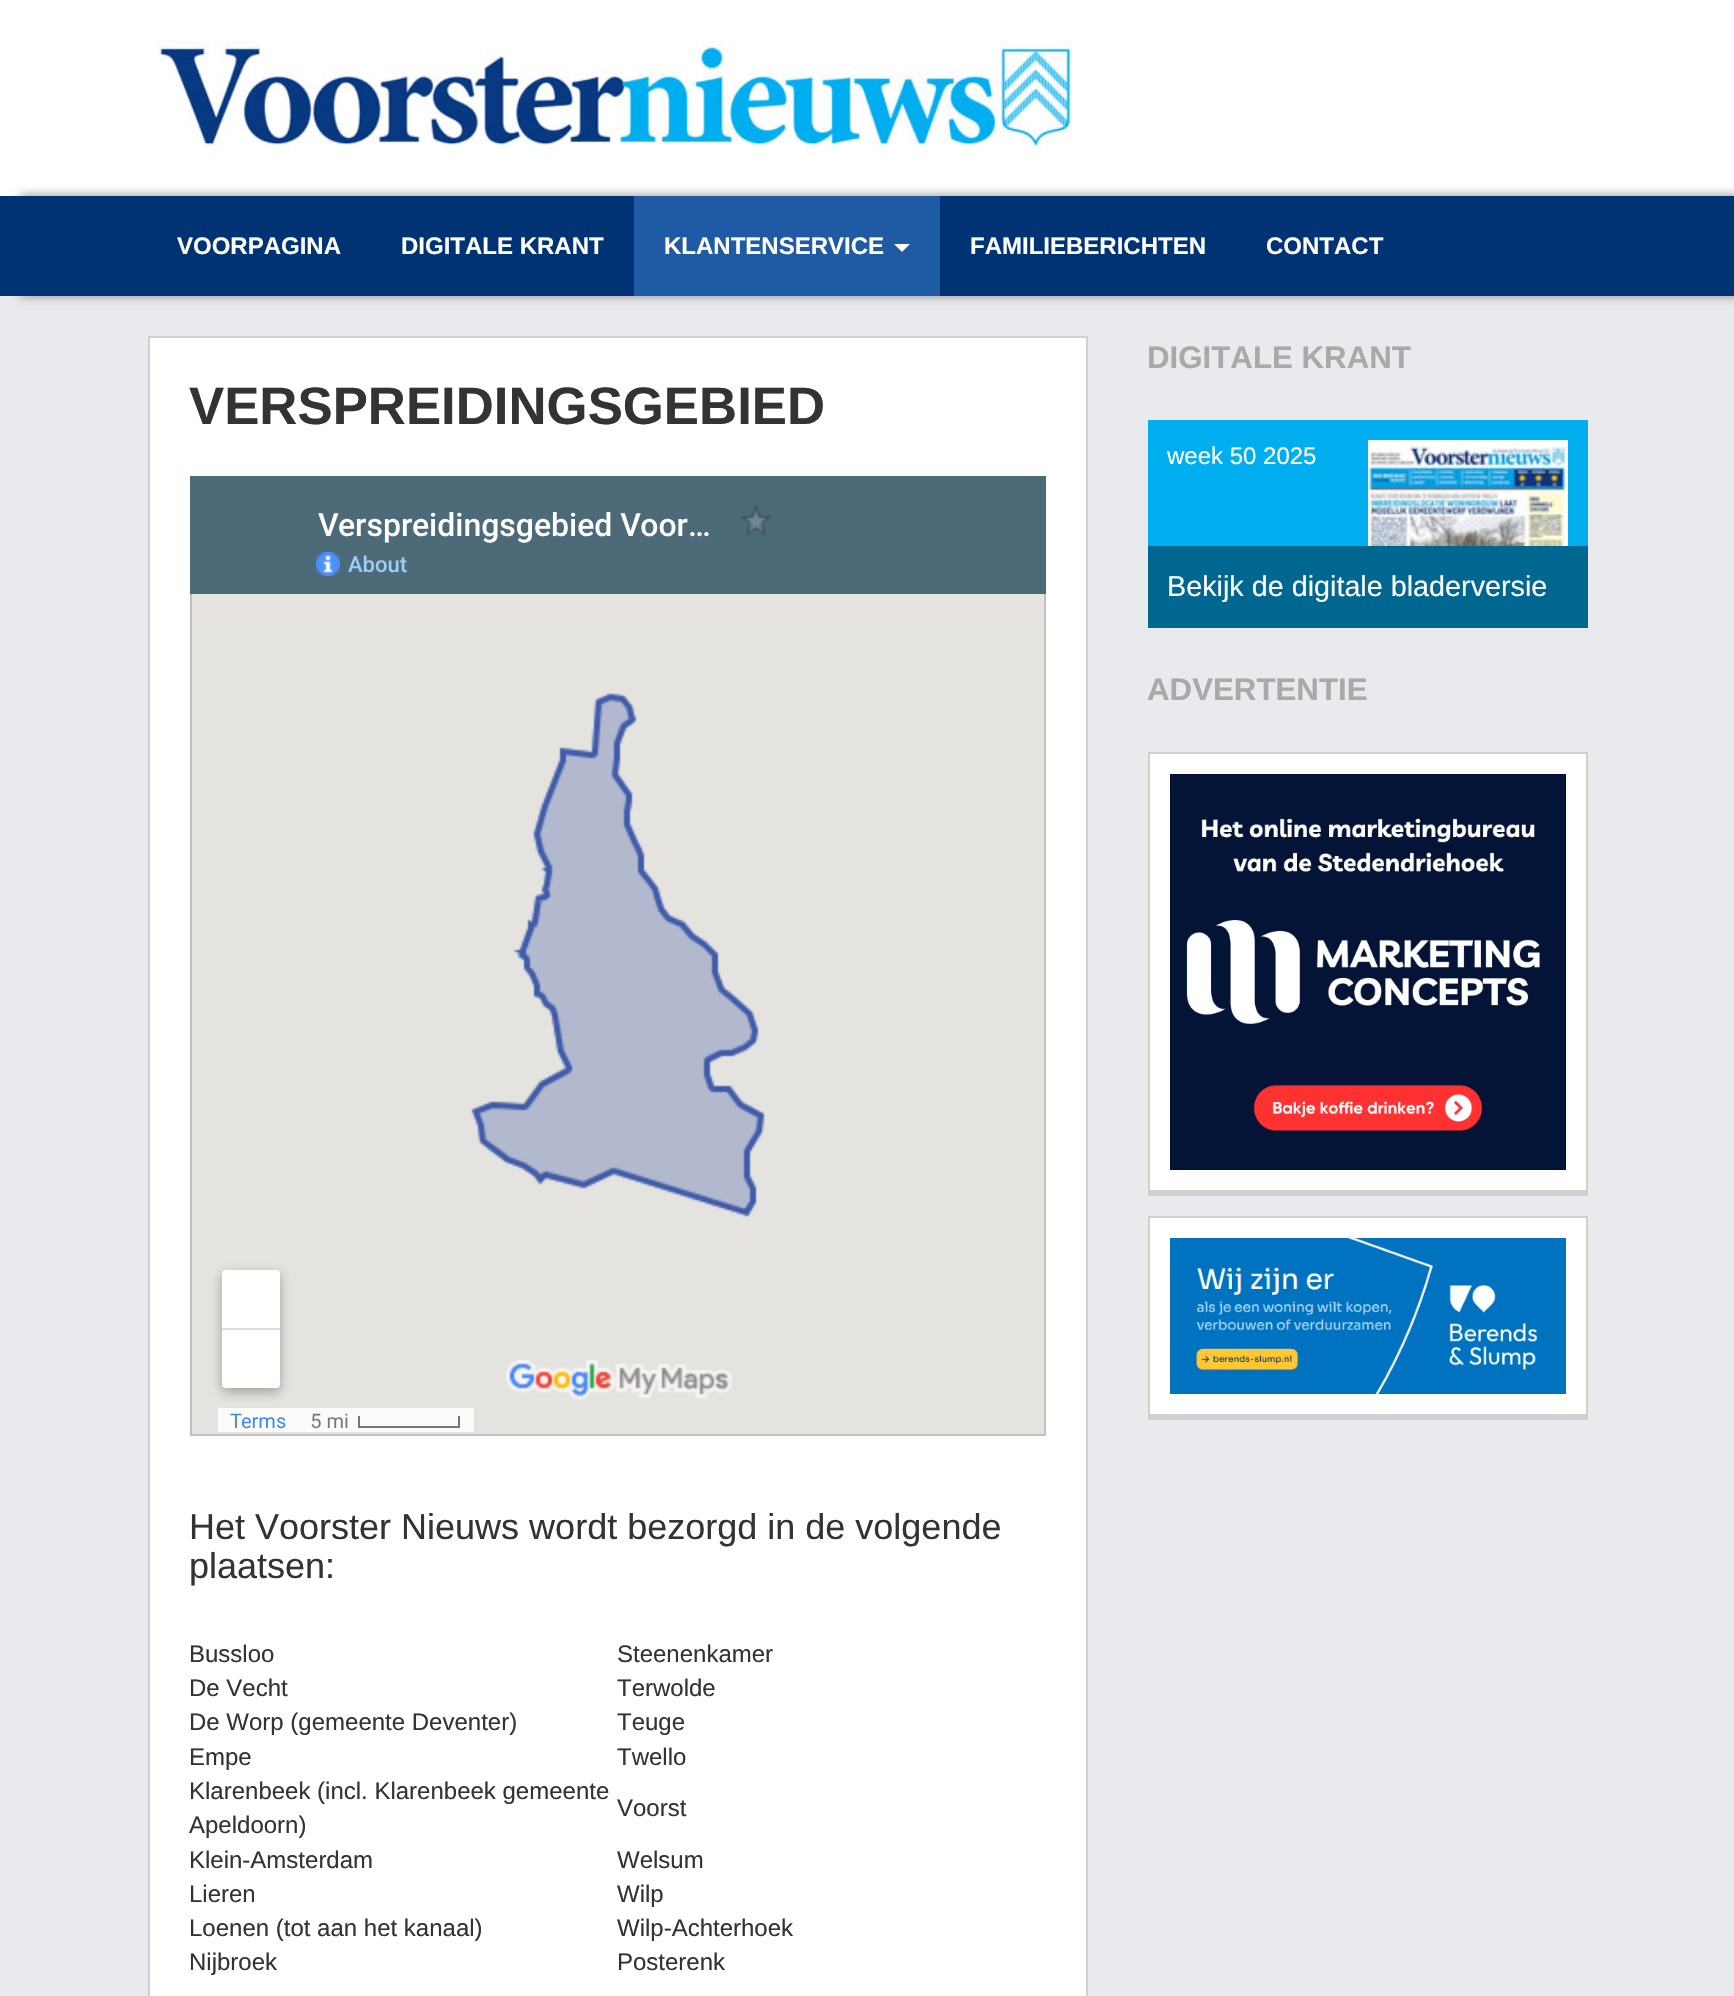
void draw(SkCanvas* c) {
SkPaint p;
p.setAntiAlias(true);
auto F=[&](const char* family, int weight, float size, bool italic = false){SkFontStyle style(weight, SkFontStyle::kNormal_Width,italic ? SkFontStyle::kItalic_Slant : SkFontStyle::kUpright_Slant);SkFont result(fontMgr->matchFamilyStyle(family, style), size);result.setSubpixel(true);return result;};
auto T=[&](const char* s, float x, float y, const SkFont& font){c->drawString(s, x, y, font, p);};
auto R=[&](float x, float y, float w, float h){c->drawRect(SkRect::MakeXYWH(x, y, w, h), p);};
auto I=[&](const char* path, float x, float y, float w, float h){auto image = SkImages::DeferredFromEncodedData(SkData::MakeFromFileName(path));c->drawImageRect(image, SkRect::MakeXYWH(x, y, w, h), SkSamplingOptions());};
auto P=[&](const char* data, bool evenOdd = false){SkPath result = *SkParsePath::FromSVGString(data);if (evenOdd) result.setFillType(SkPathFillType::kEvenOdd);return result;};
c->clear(0xffe8eaed);
p.setColor(0xffffffff);
R(0,0,1734,196);
I("1.png",158,40,914,114);
p.setColor(0xff888888);
p.setMaskFilter(SkMaskFilter::MakeBlur(kNormal_SkBlurStyle, 5));
c->drawRect(SkRect::MakeXYWH(20,196,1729,100),p);
p.setMaskFilter(nullptr);
p.setColor(0xff003374);
R(0,196,1734,100);
auto f1 = F("Liberation Sans",700,24);
p.setColor(0xffffffff);
T("VOORPAGINA",177,254,f1);
T("DIGITALE KRANT",401,254,f1);
p.setColor(0xff1f5aa5);
R(634,196,306,100);
p.setColor(0xffffffff);
T("KLANTENSERVICE",664,254,f1);
c->drawPath(P("M894 244h16l-8 8z"),p);
T("FAMILIEBERICHTEN",970,254,f1);
T("CONTACT",1266,254,f1);
R(150,338,936,1658);
p.setColor(0xffd1d1d1);
R(148,336,940,2);
R(1086,336,2,1660);
R(148,336,2,1660);
auto f2 = F("Liberation Sans",700,52.75);
p.setColor(0xff333333);
T("VERSPREIDINGSGEBIED",189,424,f2);
I("2.png",190,476,856,960);
auto f3 = F("Liberation Sans",400,36);
T("Het Voorster Nieuws wordt bezorgd in de volgende",189,1539,f3);
T("plaatsen:",189,1578,f3);
auto f4 = F("Liberation Sans",400,24);
T("Bussloo",189,1662,f4);
T("Steenenkamer",617,1662,f4);
T("De Vecht",189,1696,f4);
T("Terwolde",617,1696,f4);
T("De Worp (gemeente Deventer)",189,1730,f4);
T("Teuge",617,1730,f4);
T("Empe",189,1765,f4);
T("Twello",617,1765,f4);
T("Klarenbeek (incl. Klarenbeek gemeente",189,1799,f4);
T("Apeldoorn)",189,1833,f4);
T("Voorst",617,1816,f4);
T("Klein-Amsterdam",189,1868,f4);
T("Welsum",617,1868,f4);
T("Lieren",189,1902,f4);
T("Wilp",617,1902,f4);
T("Loenen (tot aan het kanaal)",189,1936,f4);
T("Wilp-Achterhoek",617,1936,f4);
T("Nijbroek",189,1970,f4);
T("Posterenk",617,1970,f4);
auto f5 = F("Liberation Sans",700,31.25);
p.setColor(0xffa9a9a9);
T("DIGITALE KRANT",1147,368,f5);
p.setColor(0xff01aef0);
R(1148,420,440,126);
p.setColor(0xffffffff);
T("week 50 2025",1167,464,f4);
I("3.png",1368,440,200,106);
p.setColor(0xff006790);
R(1148,546,440,82);
auto f6 = F("Liberation Sans",400,28.75);
p.setColor(0xffffffff);
T("Bekijk de digitale bladerversie",1167,596,f6);
p.setColor(0xffa9a9a9);
T("ADVERTENTIE",1147,700,f5);
p.setColor(0xffffffff);
R(1150,754,436,436);
p.setColor(0xffd1d1d1);
R(1148,752,440,2);
R(1586,752,2,444);
R(1148,1190,440,6);
R(1148,752,2,444);
I("4.png",1170,774,396,396);
p.setColor(0xffffffff);
R(1150,1218,436,196);
p.setColor(0xffd1d1d1);
R(1148,1216,440,2);
R(1586,1216,2,204);
R(1148,1414,440,6);
R(1148,1216,2,204);
I("5.png",1170,1238,396,156);
}
